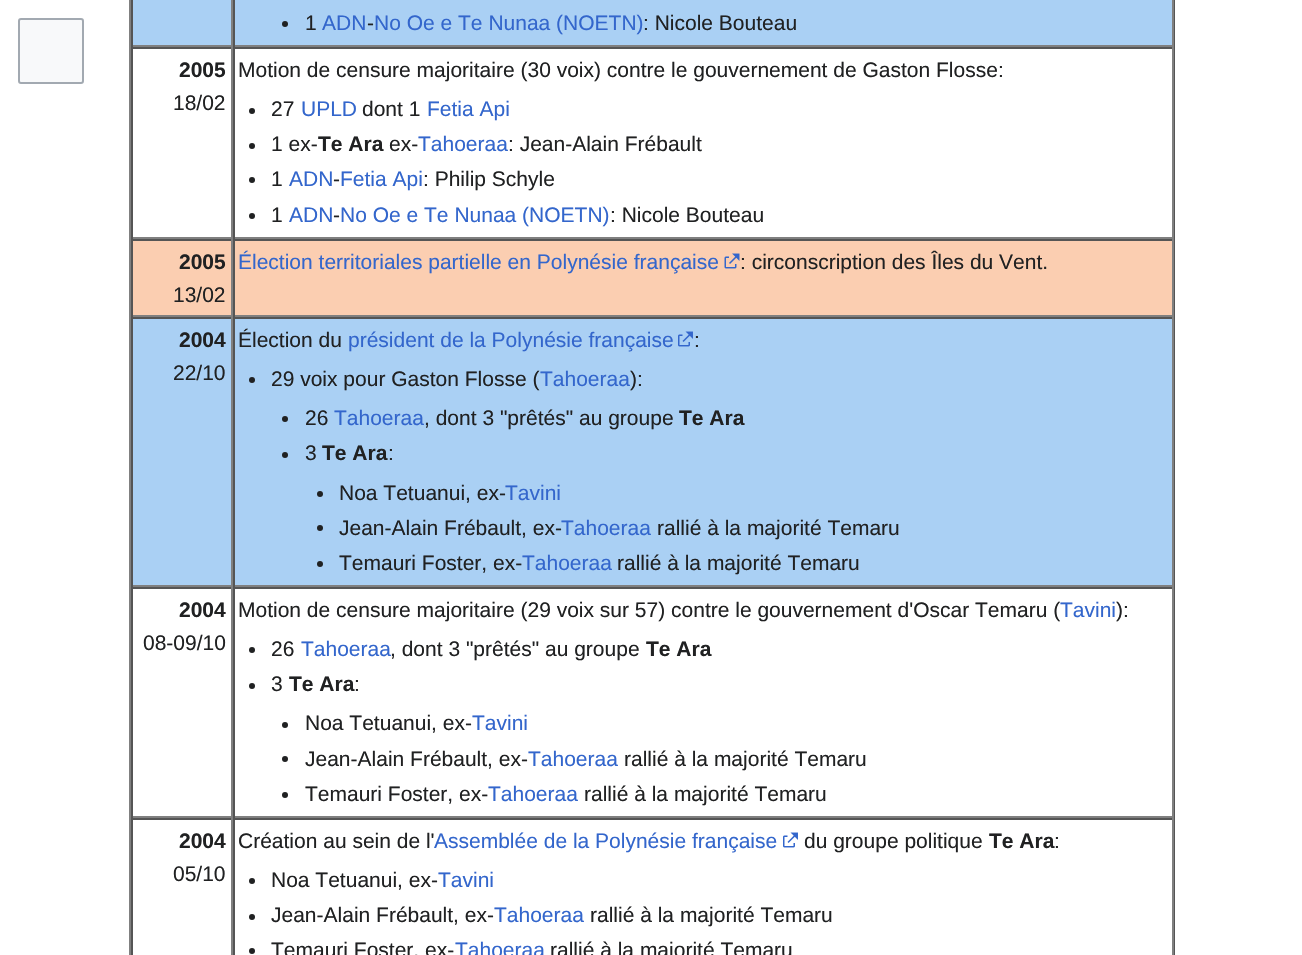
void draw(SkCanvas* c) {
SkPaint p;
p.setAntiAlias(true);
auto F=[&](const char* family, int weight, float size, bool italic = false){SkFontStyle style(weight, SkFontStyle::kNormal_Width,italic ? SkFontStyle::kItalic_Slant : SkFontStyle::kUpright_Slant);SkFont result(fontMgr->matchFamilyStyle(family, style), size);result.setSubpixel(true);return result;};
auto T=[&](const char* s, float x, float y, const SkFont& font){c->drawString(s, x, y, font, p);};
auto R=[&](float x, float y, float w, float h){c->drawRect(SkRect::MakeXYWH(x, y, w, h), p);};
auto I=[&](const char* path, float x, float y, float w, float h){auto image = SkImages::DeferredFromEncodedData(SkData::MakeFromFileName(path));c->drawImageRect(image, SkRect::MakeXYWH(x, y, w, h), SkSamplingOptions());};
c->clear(0xffffffff);
p.setColor(0xfff8f9fa);
c->drawRoundRect(SkRect::MakeXYWH(19,19,64,64),2,2,p);
p.setStroke(true);
p.setStrokeWidth(2);
p.setColor(0xffa2a9b1);
c->drawRoundRect(SkRect::MakeXYWH(19,19,64,64),2,2,p);
p.setStroke(false);
p.setColor(0xff555555);
R(1174,0,1,955);
p.setColor(0xff808080);
R(129,0,2,955);
p.setColor(0xffaad0f4);
R(133,0,98,45);
p.setColor(0xff808080);
R(231,0,2,47);
R(131,45,102,2);
p.setColor(0xff555555);
R(131,0,2,47);
p.setColor(0xffaad0f4);
R(235,0,937,45);
p.setColor(0xff808080);
R(1172,0,2,47);
R(233,45,940,2);
p.setColor(0xff555555);
R(233,0,2,47);
p.setColor(0xff202122);
c->drawCircle(285,24,3,p);
auto f1 = F("Liberation Sans",400,21);
T("1",305,30,f1);
p.setColor(0xff3366cc);
T("ADN",322,30,f1);
p.setColor(0xff202122);
T("-",367,30,f1);
p.setColor(0xff3366cc);
T("No Oe e Te Nunaa (NOETN)",374,30,f1);
p.setColor(0xff202122);
T(": Nicole Bouteau",643,30,f1);
p.setColor(0xff555555);
R(131,47,1042,2);
p.setColor(0xff808080);
R(231,47,2,192);
R(131,237,102,2);
p.setColor(0xff555555);
R(131,47,2,192);
auto f2 = F("Liberation Sans",700,21);
p.setColor(0xff202122);
T("2005",179,77,f2);
T("18/02",173,110,f1);
p.setColor(0xff808080);
R(1172,47,2,192);
R(233,237,940,2);
p.setColor(0xff555555);
R(233,47,2,192);
p.setColor(0xff202122);
T("Motion de censure majoritaire (30 voix) contre le gouvernement de Gaston Flosse:",238,77,f1);
c->drawCircle(252,111,3,p);
T("27",271,116,f1);
p.setColor(0xff3366cc);
T("UPLD",301,116,f1);
p.setColor(0xff202122);
T("dont 1",362,116,f1);
p.setColor(0xff3366cc);
T("Fetia Api",427,116,f1);
p.setColor(0xff202122);
c->drawCircle(252,146,3,p);
T("1 ex-",271,151,f1);
T("Te Ara",318,151,f2);
T("ex-",389,151,f1);
p.setColor(0xff3366cc);
T("Tahoeraa",418,151,f1);
p.setColor(0xff202122);
T(": Jean-Alain Frébault",508,151,f1);
c->drawCircle(252,180,3,p);
T("1",271,186,f1);
p.setColor(0xff3366cc);
T("ADN",289,186,f1);
p.setColor(0xff202122);
T("-",333,186,f1);
p.setColor(0xff3366cc);
T("Fetia Api",340,186,f1);
p.setColor(0xff202122);
T(": Philip Schyle",423,186,f1);
c->drawCircle(252,216,3,p);
T("1",271,222,f1);
p.setColor(0xff3366cc);
T("ADN",289,222,f1);
p.setColor(0xff202122);
T("-",333,222,f1);
p.setColor(0xff3366cc);
T("No Oe e Te Nunaa (NOETN)",340,222,f1);
p.setColor(0xff202122);
T(": Nicole Bouteau",610,222,f1);
p.setColor(0xfffbceb1);
R(133,241,98,74);
p.setColor(0xff555555);
R(131,239,1042,2);
p.setColor(0xff808080);
R(231,239,2,78);
R(131,315,102,2);
p.setColor(0xff555555);
R(131,239,2,78);
p.setColor(0xff202122);
T("2005",179,269,f2);
T("13/02",173,302,f1);
p.setColor(0xfffbceb1);
R(235,241,937,74);
p.setColor(0xff808080);
R(1172,239,2,78);
R(233,315,940,2);
p.setColor(0xff555555);
R(233,239,2,78);
p.setColor(0xff3366cc);
T("Élection territoriales partielle en Polynésie française",238,269,f1);
I("1.png",724,253,16,16);
p.setColor(0xff202122);
T(": circonscription des Îles du Vent.",740,269,f1);
p.setColor(0xffaad0f4);
R(133,319,98,266);
p.setColor(0xff555555);
R(131,317,1042,2);
p.setColor(0xff808080);
R(231,317,2,270);
R(131,585,102,2);
p.setColor(0xff555555);
R(131,317,2,270);
p.setColor(0xff202122);
T("2004",179,347,f2);
T("22/10",173,380,f1);
p.setColor(0xffaad0f4);
R(235,319,937,266);
p.setColor(0xff808080);
R(1172,317,2,270);
R(233,585,940,2);
p.setColor(0xff555555);
R(233,317,2,270);
p.setColor(0xff202122);
T("Élection du",238,347,f1);
p.setColor(0xff3366cc);
T("président de la Polynésie française",348,347,f1);
I("2.png",678,331,15,16);
p.setColor(0xff202122);
T(":",694,347,f1);
c->drawCircle(252,380,3,p);
T("29 voix pour Gaston Flosse (",271,386,f1);
p.setColor(0xff3366cc);
T("Tahoeraa",540,386,f1);
p.setColor(0xff202122);
T("):",630,386,f1);
c->drawCircle(285,419,3,p);
T("26",305,425,f1);
p.setColor(0xff3366cc);
T("Tahoeraa",334,425,f1);
p.setColor(0xff202122);
T(", dont 3 \"prêtés\" au groupe",424,425,f1);
T("Te Ara",679,425,f2);
c->drawCircle(285,455,3,p);
T("3",305,460,f1);
T("Te Ara",322,460,f2);
T(":",388,460,f1);
c->drawCircle(320,494,3,p);
T("Noa Tetuanui, ex-",339,500,f1);
p.setColor(0xff3366cc);
T("Tavini",505,500,f1);
p.setColor(0xff202122);
c->drawCircle(320,528,3,p);
T("Jean-Alain Frébault, ex-",339,535,f1);
p.setColor(0xff3366cc);
T("Tahoeraa",561,535,f1);
p.setColor(0xff202122);
T("rallié à la majorité Temaru",657,535,f1);
c->drawCircle(320,564,3,p);
T("Temauri Foster, ex-",339,570,f1);
p.setColor(0xff3366cc);
T("Tahoeraa",522,570,f1);
p.setColor(0xff202122);
T("rallié à la majorité Temaru",617,570,f1);
p.setColor(0xff555555);
R(131,587,1042,2);
p.setColor(0xff808080);
R(231,587,2,231);
R(131,816,102,2);
p.setColor(0xff555555);
R(131,587,2,231);
p.setColor(0xff202122);
T("2004",179,617,f2);
T("08-09/10",143,650,f1);
p.setColor(0xff808080);
R(1172,587,2,231);
R(233,816,940,2);
p.setColor(0xff555555);
R(233,587,2,231);
p.setColor(0xff202122);
T("Motion de censure majoritaire (29 voix sur 57) contre le gouvernement d'Oscar Temaru (",238,617,f1);
p.setColor(0xff3366cc);
T("Tavini",1060,617,f1);
p.setColor(0xff202122);
T("):",1116,617,f1);
c->drawCircle(252,650,3,p);
T("26",271,656,f1);
p.setColor(0xff3366cc);
T("Tahoeraa",301,656,f1);
p.setColor(0xff202122);
T(", dont 3 \"prêtés\" au groupe",390,656,f1);
T("Te Ara",646,656,f2);
c->drawCircle(252,686,3,p);
T("3",271,691,f1);
T("Te Ara",289,691,f2);
T(":",354,691,f1);
c->drawCircle(285,725,3,p);
T("Noa Tetuanui, ex-",305,730,f1);
p.setColor(0xff3366cc);
T("Tavini",472,730,f1);
p.setColor(0xff202122);
c->drawCircle(285,759,3,p);
T("Jean-Alain Frébault, ex-",305,766,f1);
p.setColor(0xff3366cc);
T("Tahoeraa",528,766,f1);
p.setColor(0xff202122);
T("rallié à la majorité Temaru",624,766,f1);
c->drawCircle(285,795,3,p);
T("Temauri Foster, ex-",305,801,f1);
p.setColor(0xff3366cc);
T("Tahoeraa",488,801,f1);
p.setColor(0xff202122);
T("rallié à la majorité Temaru",584,801,f1);
p.setColor(0xff555555);
R(131,818,1042,2);
p.setColor(0xff808080);
R(231,818,2,137);
p.setColor(0xff555555);
R(131,818,2,137);
p.setColor(0xff202122);
T("2004",179,848,f2);
T("05/10",173,881,f1);
p.setColor(0xff808080);
R(1172,818,2,137);
p.setColor(0xff555555);
R(233,818,2,137);
p.setColor(0xff202122);
T("Création au sein de l'",238,848,f1);
p.setColor(0xff3366cc);
T("Assemblée de la Polynésie française",434,848,f1);
I("3.png",783,832,15,16);
p.setColor(0xff202122);
T("du groupe politique",804,848,f1);
T("Te Ara",989,848,f2);
T(":",1054,848,f1);
c->drawCircle(252,881,3,p);
T("Noa Tetuanui, ex-",271,887,f1);
p.setColor(0xff3366cc);
T("Tavini",438,887,f1);
p.setColor(0xff202122);
c->drawCircle(252,917,3,p);
T("Jean-Alain Frébault, ex-",271,922,f1);
p.setColor(0xff3366cc);
T("Tahoeraa",494,922,f1);
p.setColor(0xff202122);
T("rallié à la majorité Temaru",590,922,f1);
c->drawCircle(252,951,3,p);
T("Temauri Foster, ex-",271,957,f1);
p.setColor(0xff3366cc);
T("Tahoeraa",455,957,f1);
p.setColor(0xff202122);
T("rallié à la majorité Temaru",550,957,f1);
}
